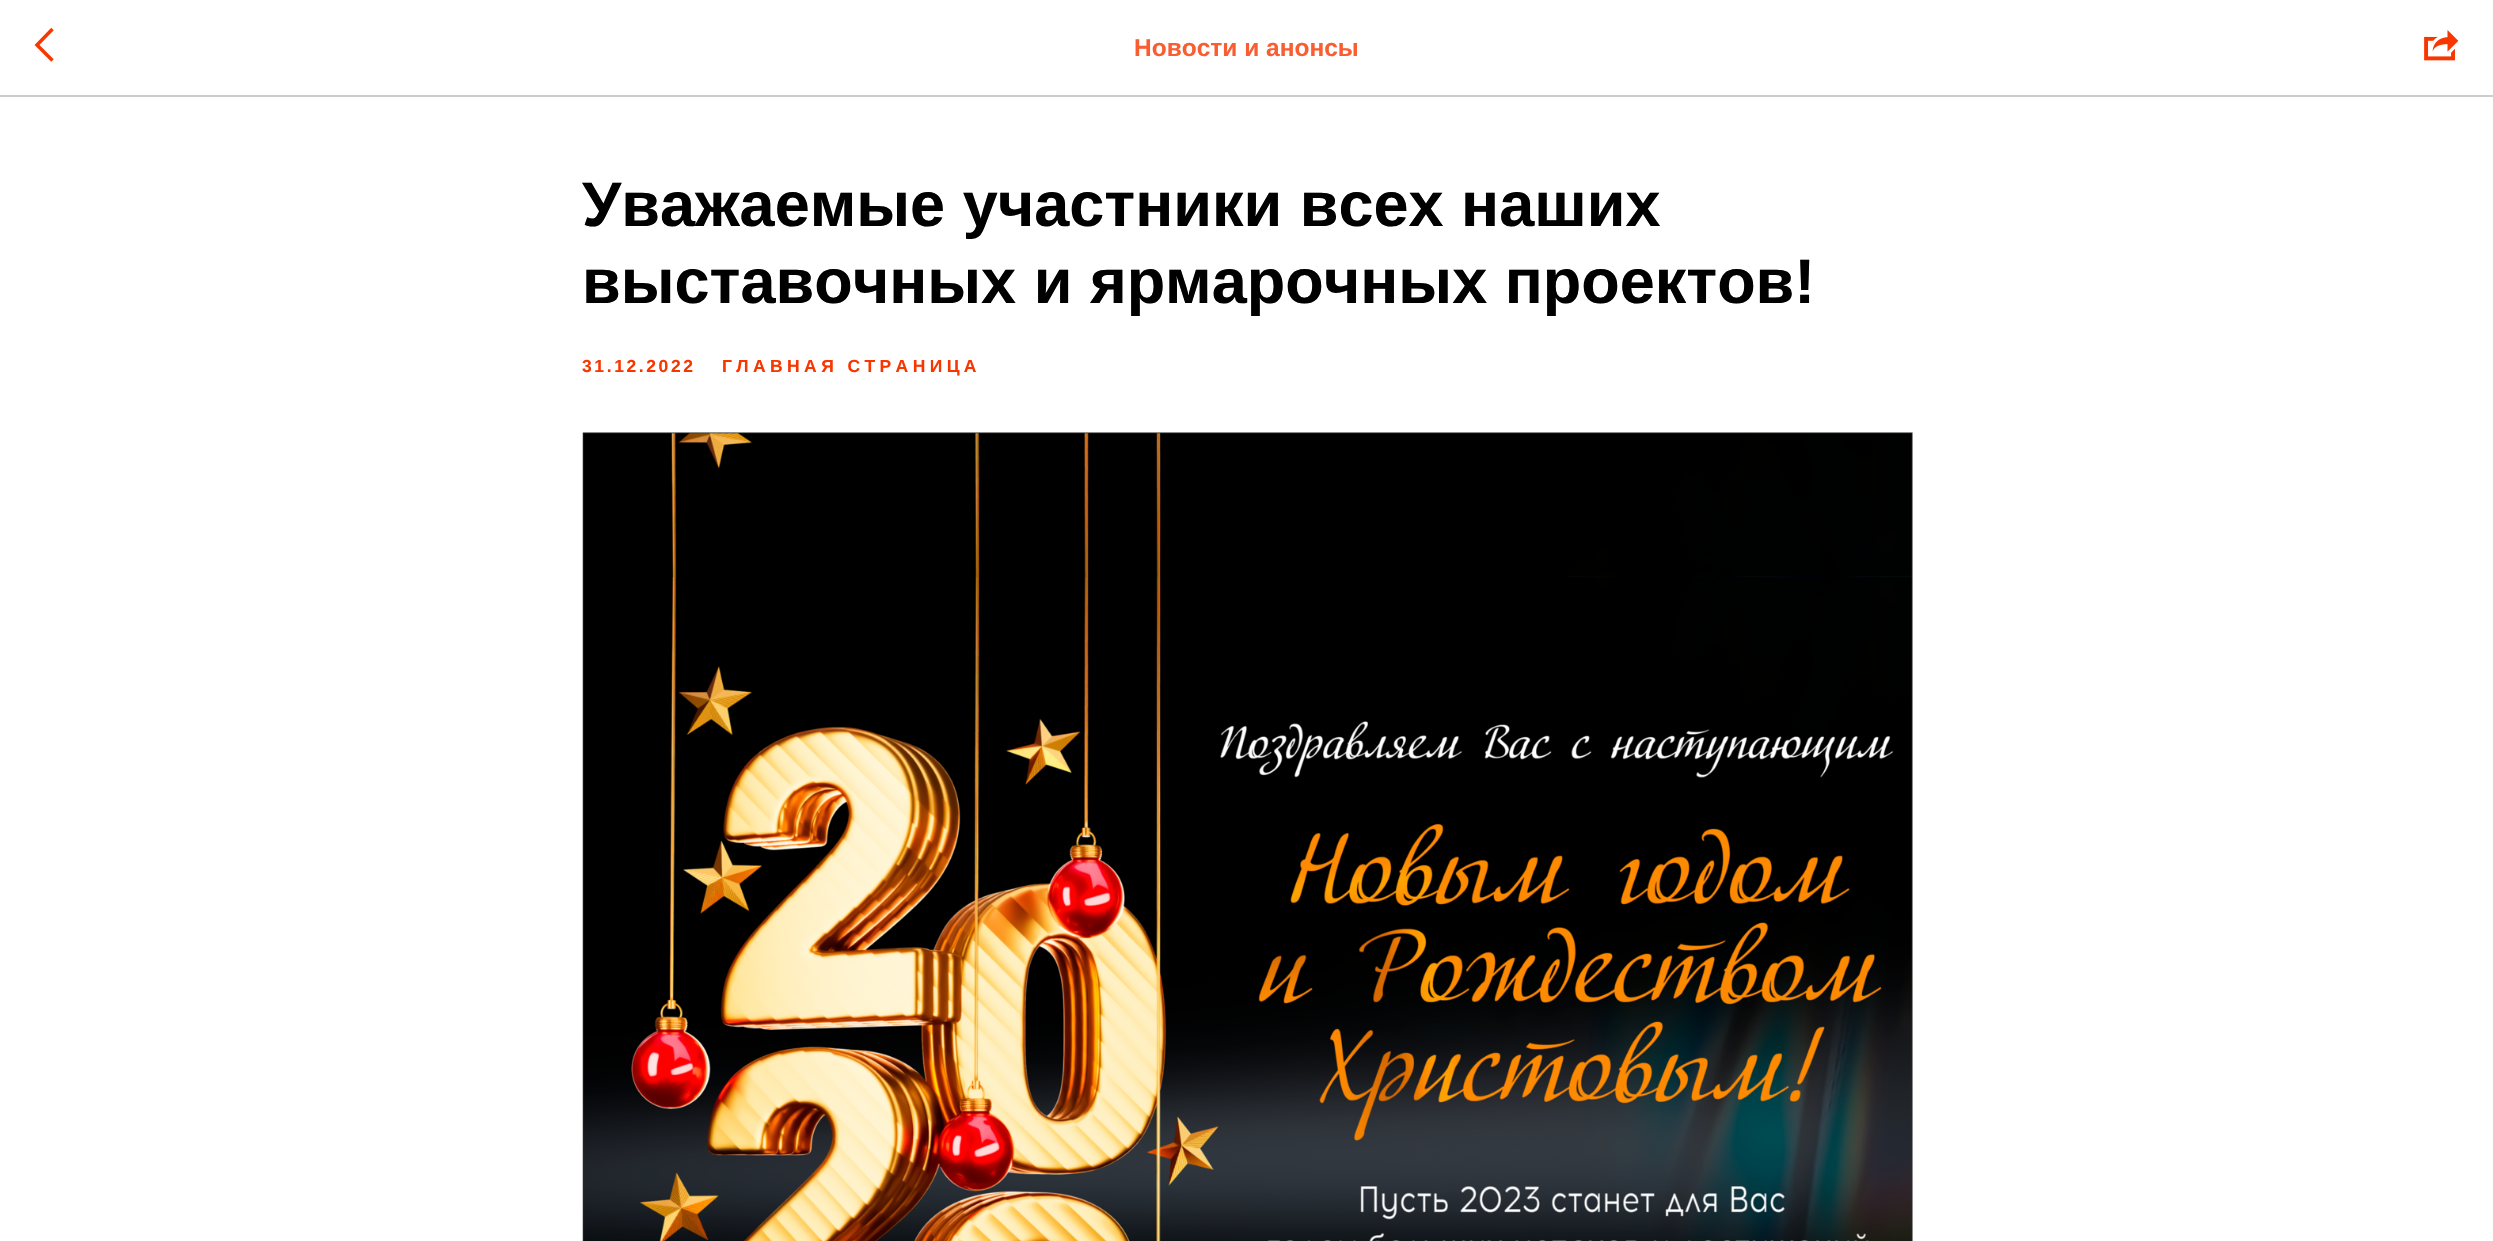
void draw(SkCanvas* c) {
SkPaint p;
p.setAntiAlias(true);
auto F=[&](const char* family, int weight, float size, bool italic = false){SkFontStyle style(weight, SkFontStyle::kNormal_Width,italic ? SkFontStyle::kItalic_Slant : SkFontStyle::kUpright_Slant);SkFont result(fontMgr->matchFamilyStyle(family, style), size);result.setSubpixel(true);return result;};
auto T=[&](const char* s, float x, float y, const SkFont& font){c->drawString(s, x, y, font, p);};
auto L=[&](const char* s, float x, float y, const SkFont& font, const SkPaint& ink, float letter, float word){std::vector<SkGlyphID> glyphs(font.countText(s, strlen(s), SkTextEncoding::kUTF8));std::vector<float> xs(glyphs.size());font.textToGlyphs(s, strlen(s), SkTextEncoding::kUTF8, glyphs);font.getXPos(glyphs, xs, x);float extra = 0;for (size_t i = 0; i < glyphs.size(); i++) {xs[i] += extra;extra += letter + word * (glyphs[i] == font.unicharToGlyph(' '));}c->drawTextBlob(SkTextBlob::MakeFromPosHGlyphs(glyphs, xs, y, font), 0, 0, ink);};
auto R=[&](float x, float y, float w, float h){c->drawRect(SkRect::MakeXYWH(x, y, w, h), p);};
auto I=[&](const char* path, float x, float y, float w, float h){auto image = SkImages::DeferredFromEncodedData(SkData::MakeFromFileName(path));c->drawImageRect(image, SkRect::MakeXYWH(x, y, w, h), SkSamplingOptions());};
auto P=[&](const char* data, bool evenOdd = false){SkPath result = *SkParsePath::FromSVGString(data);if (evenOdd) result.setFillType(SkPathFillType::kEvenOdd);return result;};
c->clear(0xffffffff);
p.setColor(0xffcccccc);
R(0,95,2493,2);
p.setStroke(true);
p.setStrokeWidth(3.5);
p.setColor(0xfff83600);
c->drawPath(P("M52.5 60.5l-15.5-15.5l15.5-16"),p);
auto f1 = F("Liberation Sans",700,24.5);
p.setStroke(false);
p.setColor(0xfff95e33);
T("Новости и анонсы",1134,56,f1);
I("1.png",2424,30,35,31);
auto f2 = F("Liberation Sans",700,63);
p.setColor(0xff000000);
T("Уважаемые участники всех наших",582,226,f2);
T("выставочных и ярмарочных проектов!",582,303,f2);
auto f3 = F("Liberation Sans",700,17.5);
p.setColor(0xfff83600);
L("31.12.2022",582,372,f3,p,2.6,0);
L("ГЛАВНАЯ СТРАНИЦА",722,372,f3,p,4.4,0);
I("2.png",582,432,1331,809);
}
